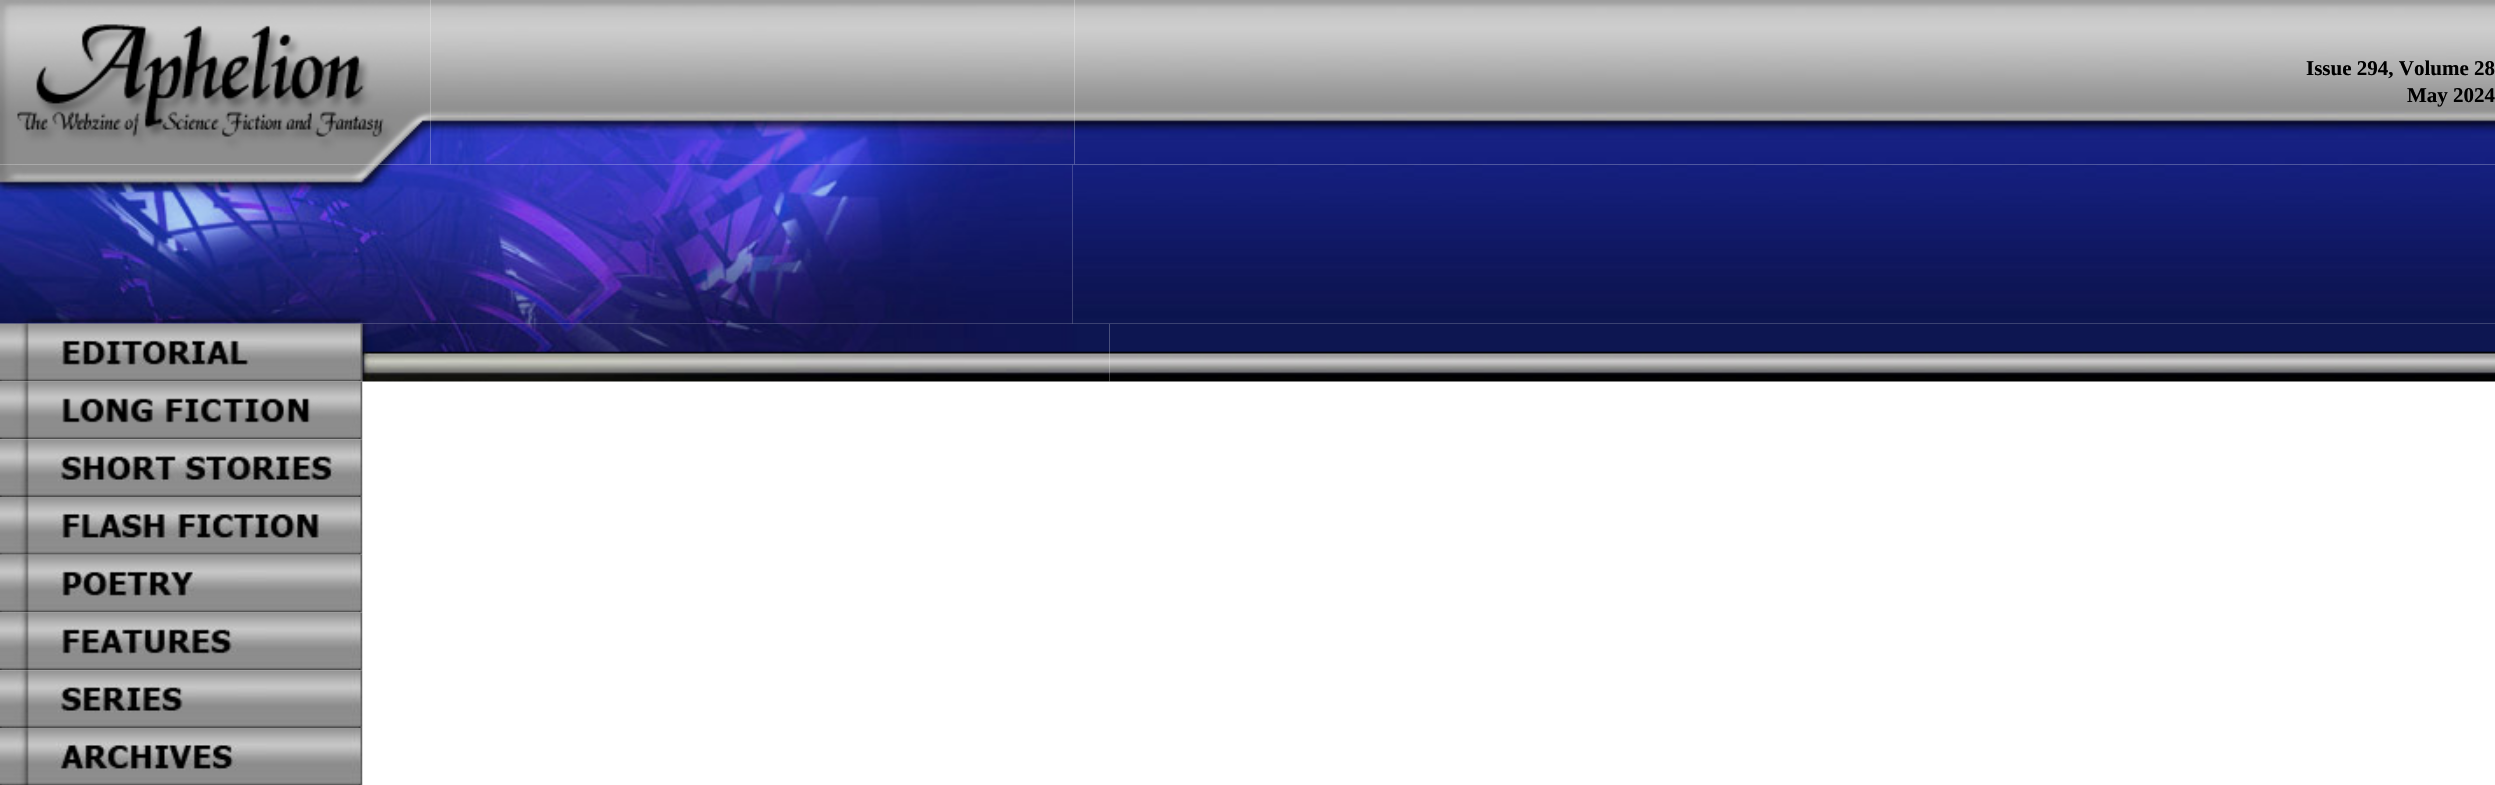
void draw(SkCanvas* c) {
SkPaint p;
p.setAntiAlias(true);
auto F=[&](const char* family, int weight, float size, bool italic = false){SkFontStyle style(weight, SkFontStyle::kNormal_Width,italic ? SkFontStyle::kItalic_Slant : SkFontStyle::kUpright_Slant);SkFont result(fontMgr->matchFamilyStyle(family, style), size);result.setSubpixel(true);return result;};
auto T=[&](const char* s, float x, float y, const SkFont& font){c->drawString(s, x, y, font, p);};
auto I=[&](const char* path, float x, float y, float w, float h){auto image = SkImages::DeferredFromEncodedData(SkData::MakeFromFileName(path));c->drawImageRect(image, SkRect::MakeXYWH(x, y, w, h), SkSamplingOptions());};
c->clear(0xffffffff);
I("1.png",0,0,431,165);
I("3.png",1074,0,1421,165);
I("5.png",1072,164,1423,160);
I("2.png",430,0,645,165);
auto f1 = F("Liberation Serif",700,21);
p.setColor(0xff000000);
T("Issue 294, Volume 28",2306,75,f1);
T("May 2024",2407,102,f1);
I("4.png",0,164,1073,160);
I("6.png",0,323,363,59);
I("8.png",1109,323,1386,59);
I("7.png",362,323,748,59);
I("9.png",0,381,363,59);
I("10.png",0,439,363,58);
I("11.png",0,497,363,58);
I("12.png",0,554,363,59);
I("13.png",0,612,363,59);
I("14.png",0,670,363,58);
I("15.png",0,728,363,57);
}
